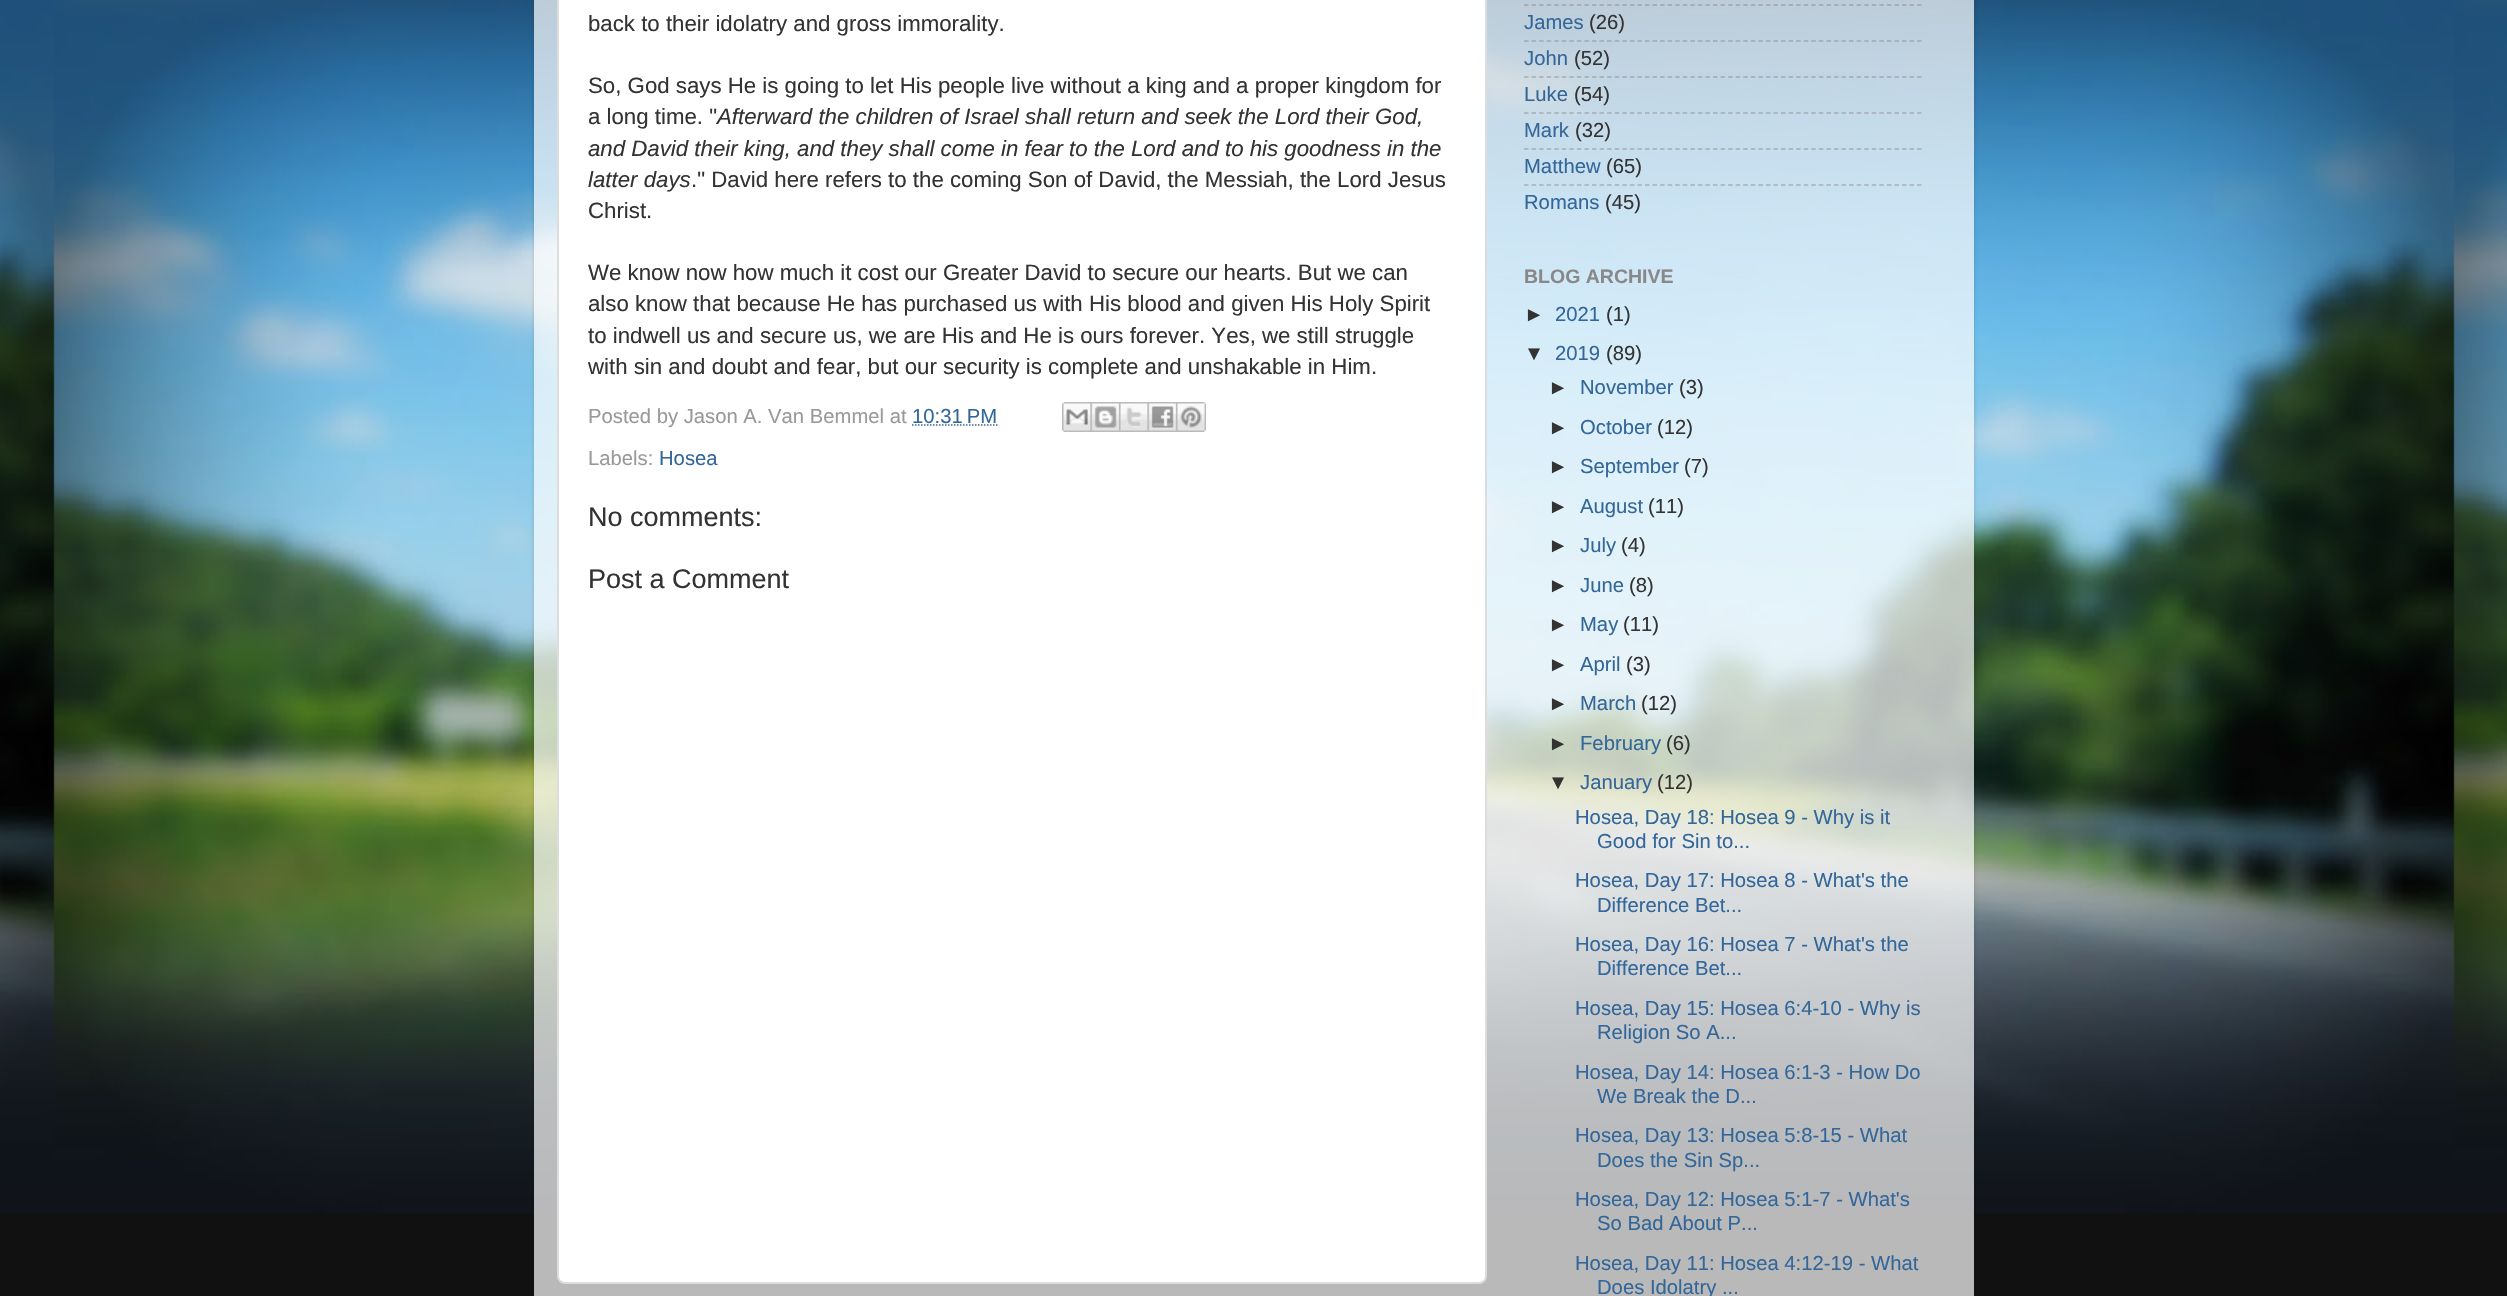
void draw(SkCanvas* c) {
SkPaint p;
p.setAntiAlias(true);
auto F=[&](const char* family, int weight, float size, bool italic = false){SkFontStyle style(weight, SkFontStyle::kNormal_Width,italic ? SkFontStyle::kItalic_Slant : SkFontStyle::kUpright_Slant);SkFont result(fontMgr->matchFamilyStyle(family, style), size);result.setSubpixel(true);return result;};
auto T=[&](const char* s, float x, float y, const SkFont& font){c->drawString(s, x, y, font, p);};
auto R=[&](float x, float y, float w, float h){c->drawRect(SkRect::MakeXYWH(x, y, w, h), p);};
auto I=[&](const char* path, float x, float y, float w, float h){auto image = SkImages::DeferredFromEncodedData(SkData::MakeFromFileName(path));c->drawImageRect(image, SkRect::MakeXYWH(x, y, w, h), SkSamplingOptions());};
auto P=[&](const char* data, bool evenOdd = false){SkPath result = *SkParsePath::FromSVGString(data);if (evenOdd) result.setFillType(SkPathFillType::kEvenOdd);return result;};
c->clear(0xff111111);
I("1.png",0,0,2507,1214);
c->save();
c->clipPath(P("M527 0h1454v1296h-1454zm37-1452h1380c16.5 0 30 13.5 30 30v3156h-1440v-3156c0-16.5 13.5-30 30-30z",true),true);
p.setColor(0x26000000);
p.setMaskFilter(SkMaskFilter::MakeBlur(kNormal_SkBlurStyle, 2));
c->drawRoundRect(SkRect::MakeXYWH(534,-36,1440,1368),30,30,p);
p.setMaskFilter(nullptr);
c->restore();
p.setColor(0xb3ffffff);
R(534,0,1440,1296);
p.setColor(0xffffffff);
c->drawRoundRect(SkRect::MakeXYWH(558,-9,928,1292),7,7,p);
p.setStroke(true);
p.setStrokeWidth(2);
p.setColor(0xffdddddd);
c->drawRoundRect(SkRect::MakeXYWH(558,-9,928,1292),7,7,p);
auto f1 = F("Liberation Sans",400,22.25);
p.setStroke(false);
p.setColor(0xff333333);
T("back to their idolatry and gross immorality.",588,31,f1);
T("So, God says He is going to let His people live without a king and a proper kingdom for",588,93,f1);
T("a long time. \"",588,124,f1);
auto f2 = F("Liberation Sans",400,22.25,true);
T("Afterward the children of Israel shall return and seek the Lord their God,",717,124,f2);
T("and David their king, and they shall come in fear to the Lord and to his goodness in the",588,156,f2);
T("latter days",588,187,f2);
T(".\" David here refers to the coming Son of David, the Messiah, the Lord Jesus",691,187,f1);
T("Christ.",588,218,f1);
T("We know now how much it cost our Greater David to secure our hearts. But we can",588,280,f1);
T("also know that because He has purchased us with His blood and given His Holy Spirit",588,311,f1);
T("to indwell us and secure us, we are His and He is ours forever. Yes, we still struggle",588,343,f1);
T("with sin and doubt and fear, but our security is complete and unshakable in Him.",588,374,f1);
auto f3 = F("Liberation Sans",400,20.25);
p.setColor(0xff999999);
T("Posted by Jason A. Van Bemmel at",588,423,f3);
p.setColor(0xff336699);
T("10:31 PM",912,423,f3);
p.setStroke(true);
p.setStrokeWidth(1.5);
p.setPathEffect(SkDashPathEffect::Make({{1.5f,1.5f}}, 0));
c->drawPath(P("M912 425h85.5"),p);
p.setPathEffect(nullptr);
I("2.png",1062,402,29,30);
I("3.png",1090,402,29,30);
I("4.png",1119,402,29,30);
I("5.png",1147,402,29,30);
I("6.png",1176,402,30,30);
p.setStroke(false);
p.setColor(0xff999999);
T("Labels:",588,465,f3);
p.setColor(0xff336699);
T("Hosea",659,465,f3);
auto f4 = F("Liberation Sans",400,27);
p.setColor(0xff333333);
T("No comments:",588,526,f4);
T("Post a Comment",588,588,f4);
p.setStroke(true);
p.setColor(0xff9ea6ac);
p.setPathEffect(SkDashPathEffect::Make({{4.5f,3.06f}}, 0));
c->drawPath(P("M1524 5h397.5"),p);
p.setPathEffect(nullptr);
p.setStroke(false);
p.setColor(0xff336699);
T("James",1524,29,f3);
p.setColor(0xff333333);
T("(26)",1589,29,f3);
p.setStroke(true);
p.setColor(0xff9fa8af);
p.setPathEffect(SkDashPathEffect::Make({{4.5f,3.06f}}, 0));
c->drawPath(P("M1524 41h397.5"),p);
p.setPathEffect(nullptr);
p.setStroke(false);
p.setColor(0xff336699);
T("John",1524,65,f3);
p.setColor(0xff333333);
T("(52)",1574,65,f3);
p.setStroke(true);
p.setColor(0x80808080);
p.setPathEffect(SkDashPathEffect::Make({{4.5f,3.06f}}, 0));
c->drawPath(P("M1524 77h397.5"),p);
p.setPathEffect(nullptr);
p.setStroke(false);
p.setColor(0xff336699);
T("Luke",1524,101,f3);
p.setColor(0xff333333);
T("(54)",1574,101,f3);
p.setStroke(true);
p.setColor(0x80808080);
p.setPathEffect(SkDashPathEffect::Make({{4.5f,3.06f}}, 0));
c->drawPath(P("M1524 113h397.5"),p);
p.setPathEffect(nullptr);
p.setStroke(false);
p.setColor(0xff336699);
T("Mark",1524,137,f3);
p.setColor(0xff333333);
T("(32)",1575,137,f3);
p.setStroke(true);
p.setColor(0xffa3aeb6);
p.setPathEffect(SkDashPathEffect::Make({{4.5f,3.06f}}, 0));
c->drawPath(P("M1524 149h397.5"),p);
p.setPathEffect(nullptr);
p.setStroke(false);
p.setColor(0xff336699);
T("Matthew",1524,173,f3);
p.setColor(0xff333333);
T("(65)",1606,173,f3);
p.setStroke(true);
p.setColor(0xffa4b0b8);
p.setPathEffect(SkDashPathEffect::Make({{4.5f,3.06f}}, 0));
c->drawPath(P("M1524 185h397.5"),p);
p.setPathEffect(nullptr);
p.setStroke(false);
p.setColor(0xff336699);
T("Romans",1524,209,f3);
p.setColor(0xff333333);
T("(45)",1605,209,f3);
auto f5 = F("Liberation Sans",700,19.5);
p.setColor(0xff888888);
T("BLOG ARCHIVE",1524,283,f5);
p.setColor(0xff333333);
T("►",1524,321,f3);
p.setColor(0xff336699);
T("2021",1555,321,f3);
p.setColor(0xff333333);
T("(1)",1606,321,f3);
T("▼",1524,360,f3);
p.setColor(0xff336699);
T("2019",1555,360,f3);
p.setColor(0xff333333);
T("(89)",1606,360,f3);
T("►",1548,394,f3);
p.setColor(0xff336699);
T("November",1580,394,f3);
p.setColor(0xff333333);
T("(3)",1679,394,f3);
T("►",1548,434,f3);
p.setColor(0xff336699);
T("October",1580,434,f3);
p.setColor(0xff333333);
T("(12)",1657,434,f3);
T("►",1548,473,f3);
p.setColor(0xff336699);
T("September",1580,473,f3);
p.setColor(0xff333333);
T("(7)",1684,473,f3);
T("►",1548,513,f3);
p.setColor(0xff336699);
T("August",1580,513,f3);
p.setColor(0xff333333);
T("(11)",1648,513,f3);
T("►",1548,552,f3);
p.setColor(0xff336699);
T("July",1580,552,f3);
p.setColor(0xff333333);
T("(4)",1621,552,f3);
T("►",1548,592,f3);
p.setColor(0xff336699);
T("June",1580,592,f3);
p.setColor(0xff333333);
T("(8)",1629,592,f3);
T("►",1548,631,f3);
p.setColor(0xff336699);
T("May",1580,631,f3);
p.setColor(0xff333333);
T("(11)",1623,631,f3);
T("►",1548,671,f3);
p.setColor(0xff336699);
T("April",1580,671,f3);
p.setColor(0xff333333);
T("(3)",1626,671,f3);
T("►",1548,710,f3);
p.setColor(0xff336699);
T("March",1580,710,f3);
p.setColor(0xff333333);
T("(12)",1641,710,f3);
T("►",1548,750,f3);
p.setColor(0xff336699);
T("February",1580,750,f3);
p.setColor(0xff333333);
T("(6)",1666,750,f3);
T("▼",1548,789,f3);
p.setColor(0xff336699);
T("January",1580,789,f3);
p.setColor(0xff333333);
T("(12)",1657,789,f3);
p.setColor(0xff336699);
T("Hosea, Day 18: Hosea 9 - Why is it",1575,824,f3);
T("Good for Sin to...",1597,848,f3);
T("Hosea, Day 17: Hosea 8 - What's the",1575,887,f3);
T("Difference Bet...",1597,912,f3);
T("Hosea, Day 16: Hosea 7 - What's the",1575,951,f3);
T("Difference Bet...",1597,975,f3);
T("Hosea, Day 15: Hosea 6:4-10 - Why is",1575,1015,f3);
T("Religion So A...",1597,1039,f3);
T("Hosea, Day 14: Hosea 6:1-3 - How Do",1575,1079,f3);
T("We Break the D...",1597,1103,f3);
T("Hosea, Day 13: Hosea 5:8-15 - What",1575,1142,f3);
T("Does the Sin Sp...",1597,1167,f3);
T("Hosea, Day 12: Hosea 5:1-7 - What's",1575,1206,f3);
T("So Bad About P...",1597,1230,f3);
T("Hosea, Day 11: Hosea 4:12-19 - What",1575,1270,f3);
T("Does Idolatry ...",1597,1294,f3);
}
